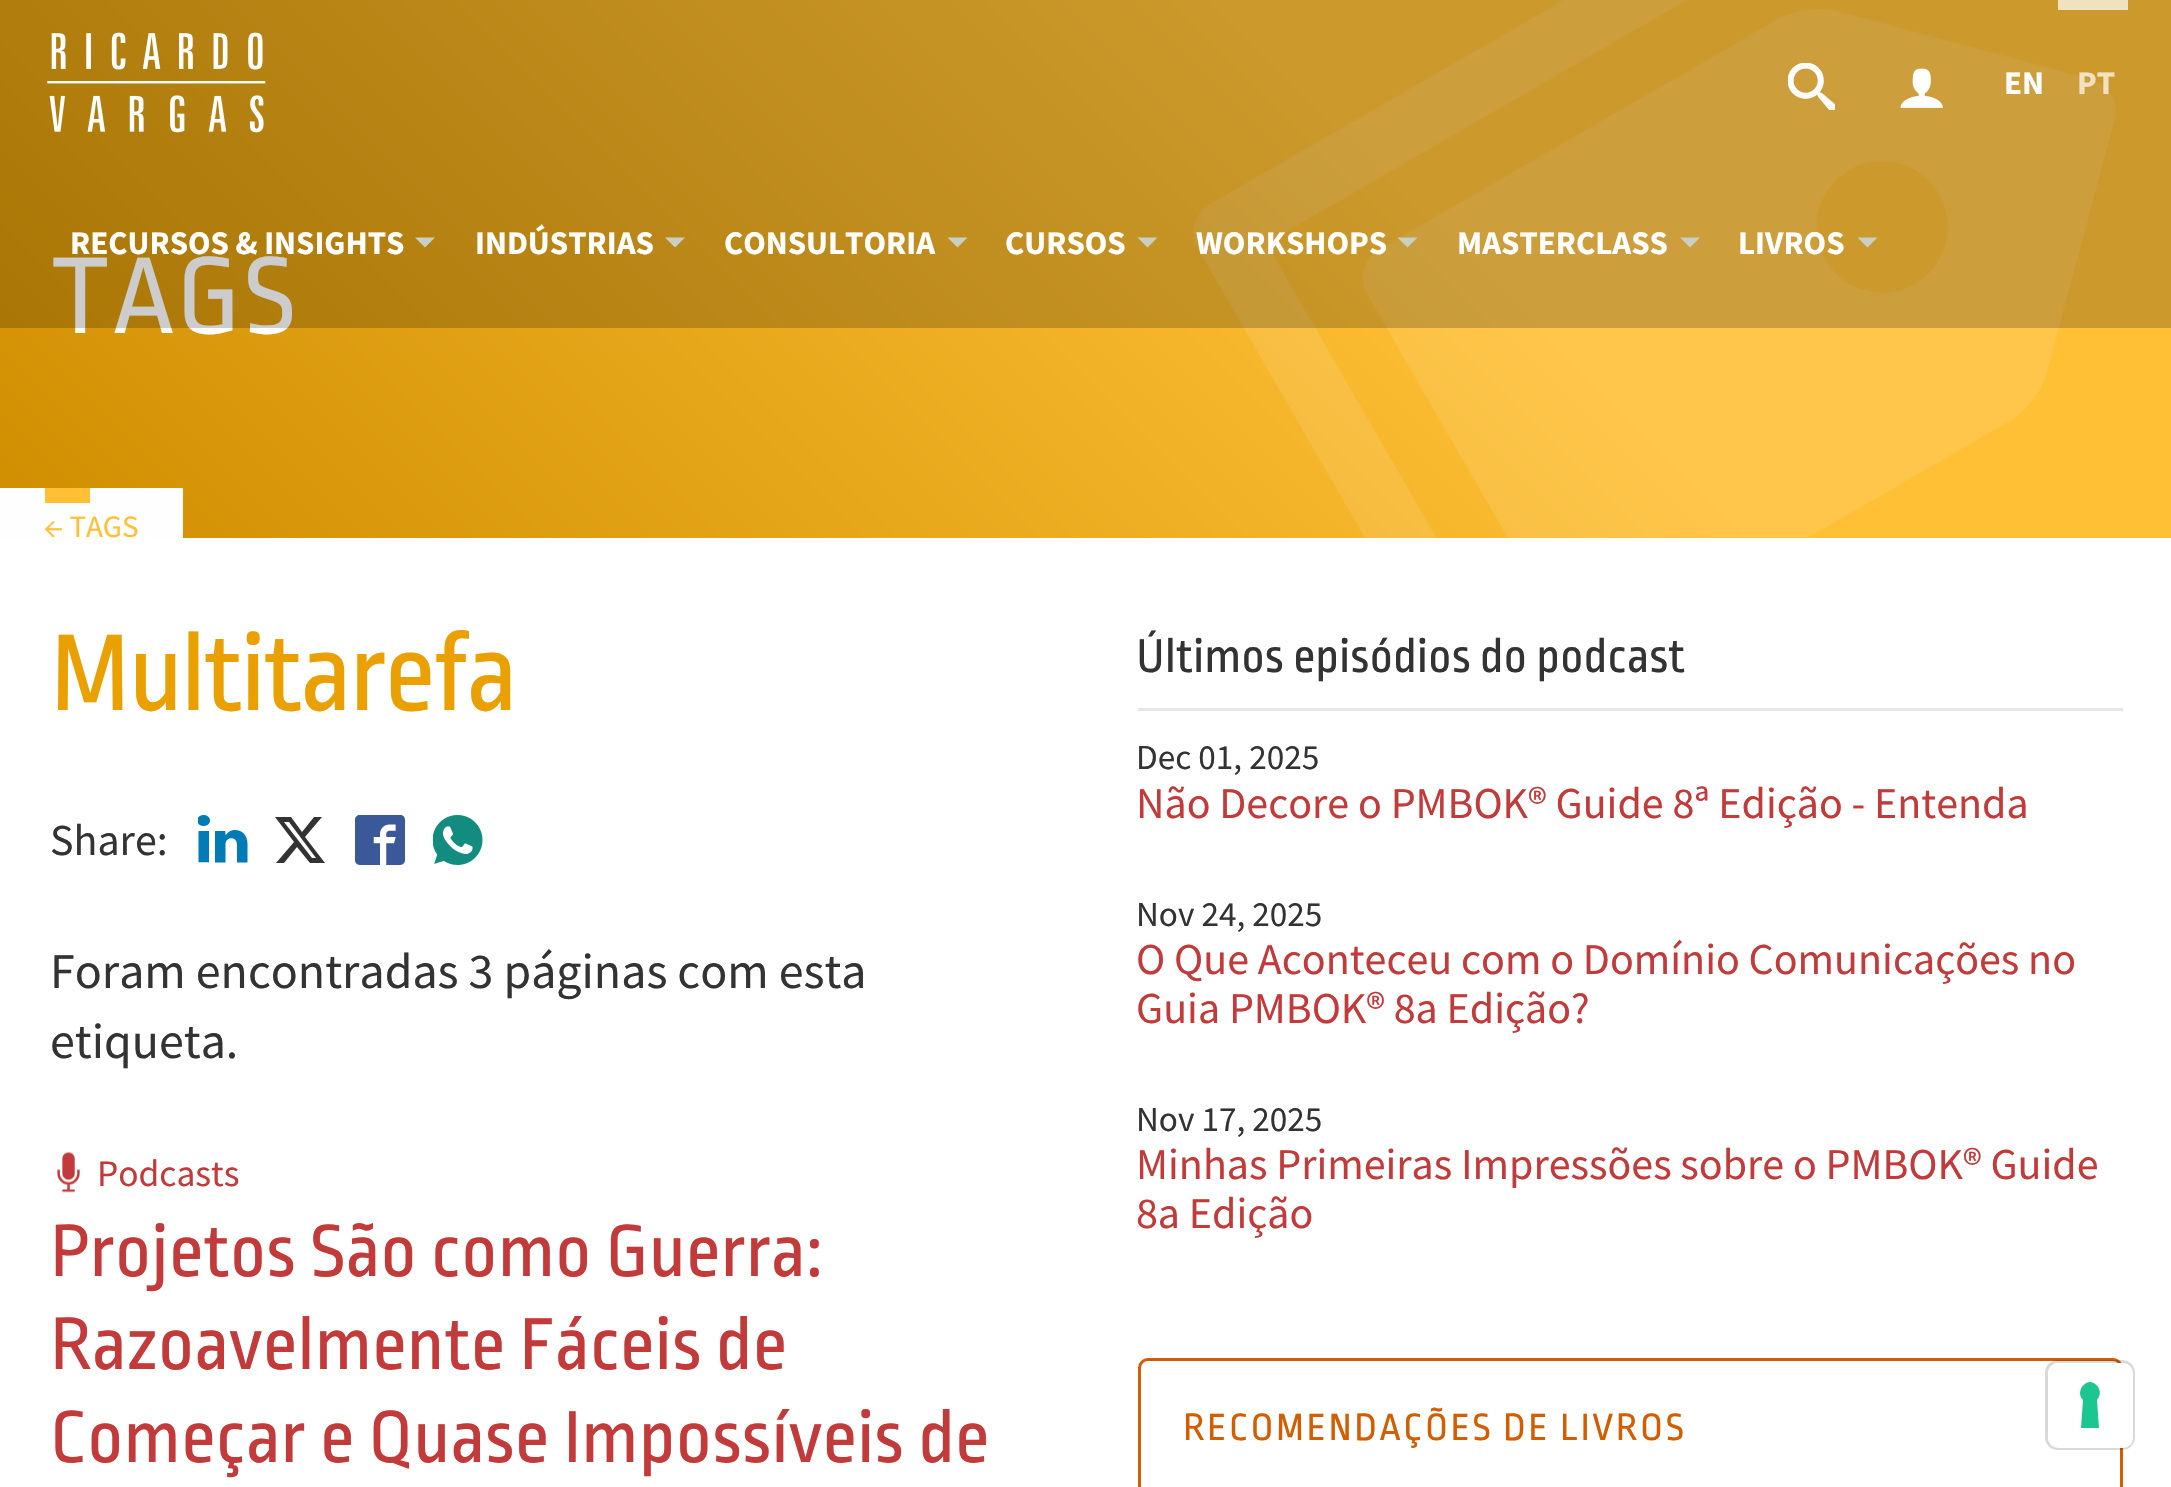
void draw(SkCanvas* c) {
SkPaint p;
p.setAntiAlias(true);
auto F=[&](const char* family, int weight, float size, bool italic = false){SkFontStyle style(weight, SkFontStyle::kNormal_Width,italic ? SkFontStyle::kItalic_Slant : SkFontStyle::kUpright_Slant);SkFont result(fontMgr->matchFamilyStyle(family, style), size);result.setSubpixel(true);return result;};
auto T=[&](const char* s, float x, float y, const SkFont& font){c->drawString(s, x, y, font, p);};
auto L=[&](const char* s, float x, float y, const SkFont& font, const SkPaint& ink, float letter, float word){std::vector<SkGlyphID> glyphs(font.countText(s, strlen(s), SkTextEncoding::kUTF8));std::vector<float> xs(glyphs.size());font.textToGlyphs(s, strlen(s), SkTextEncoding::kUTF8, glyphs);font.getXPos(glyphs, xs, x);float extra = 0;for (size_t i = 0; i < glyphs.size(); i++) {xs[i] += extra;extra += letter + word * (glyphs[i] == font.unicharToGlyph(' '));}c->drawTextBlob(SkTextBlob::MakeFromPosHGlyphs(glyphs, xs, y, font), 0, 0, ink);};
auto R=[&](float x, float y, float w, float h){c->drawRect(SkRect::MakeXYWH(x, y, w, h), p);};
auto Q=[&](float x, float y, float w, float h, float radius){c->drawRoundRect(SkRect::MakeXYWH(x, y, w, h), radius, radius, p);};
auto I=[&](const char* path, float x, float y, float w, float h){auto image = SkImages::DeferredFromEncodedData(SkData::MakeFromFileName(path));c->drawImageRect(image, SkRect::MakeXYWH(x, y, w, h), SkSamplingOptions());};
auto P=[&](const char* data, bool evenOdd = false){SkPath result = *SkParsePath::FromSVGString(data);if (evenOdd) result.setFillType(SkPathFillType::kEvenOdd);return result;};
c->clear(0xffffffff);
{
const SkColor colors[] = {0xffcf8e00,0xffffc036};
const float stops[] = {0,.65};
const SkPoint ends[] = {{409,946}, {1764,-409}};
p.setShader(SkGradientShader::MakeLinear(ends, colors, stops, 2, SkTileMode::kClamp));
p.setAlpha(255);
}
R(0,0,2171,538);
auto f1 = F("Ropa Sans",400,115);
p.setShader(nullptr);
p.setColor(0xffffffff);
L("TAGS",50,333,f1,p,2.5,0);
I("4.png",1193,0,923,538);
p.setColor(0x33000000);
R(0,0,2171,328);
I("1.png",47,32,219,101);
I("2.png",1788,63,47,47);
I("3.png",1900,68,43,40);
auto f2 = F("Source Sans Pro",700,33);
p.setColor(0xffffffff);
T("EN",2004,94,f2);
p.setColor(0xfff0e1bf);
R(2058,0,70,10);
p.setColor(0xfff0e1c2);
T("PT",2077,94,f2);
p.setColor(0xffffffff);
T("RECURSOS & INSIGHTS",70,254,f2);
p.setColor(0xffc7d0c2);
c->drawPath(P("M415 237.5h20l-10 10z"),p);
p.setColor(0xffffffff);
T("INDÚSTRIAS",475,254,f2);
p.setColor(0xffc7d0c2);
c->drawPath(P("M665 237.5h20l-10 10z"),p);
p.setColor(0xffffffff);
T("CONSULTORIA",724,254,f2);
p.setColor(0xffc7d0c2);
c->drawPath(P("M947.5 237.5h20l-10 10z"),p);
p.setColor(0xffffffff);
T("CURSOS",1005,254,f2);
p.setColor(0xffc7d0c2);
c->drawPath(P("M1137.5 237.5h20l-10 10z"),p);
p.setColor(0xffffffff);
T("WORKSHOPS",1196,254,f2);
p.setColor(0xffc7d0c2);
c->drawPath(P("M1397.5 237.5h20l-10 10z"),p);
p.setColor(0xffffffff);
T("MASTERCLASS",1457,254,f2);
p.setColor(0xffc7d0c2);
c->drawPath(P("M1680 237.5h20l-10 10z"),p);
p.setColor(0xffffffff);
T("LIVROS",1738,254,f2);
p.setColor(0xffc7d0c2);
c->drawPath(P("M1857.5 237.5h20l-10 10z"),p);
p.setColor(0xfffefefe);
R(0,488,183,50);
p.setColor(0xffffc036);
R(45,488,45,15);
auto f3 = F("Source Sans Pro",400,31);
T("← TAGS",44,537,f3);
p.setColor(0xffe9a000);
L("Multitarefa",50,710,f1,p,-2.5,0);
auto f4 = F("Source Sans Pro",400,44);
p.setColor(0xff333333);
T("Share:",50,855,f4);
I("5.png",198,815,50,48);
c->drawPath(P("M314 817h8l-17 20l20 26h-15l-13-16l-13 16h-8l18-21l-19-25h16l11 15zm-2 41h4l-27-36h-5z"),p);
I("6.png",355,815,50,50);
I("7.png",433,815,50,50);
auto f5 = F("Source Sans Pro",400,50);
T("Foram encontradas 3 páginas com esta",50,988,f5);
T("etiqueta.",50,1058,f5);
I("8.png",57,1152,23,41);
auto f6 = F("Source Sans Pro",400,37.5);
p.setColor(0xffc33a3a);
T("Podcasts",97,1186,f6);
auto f7 = F("Ropa Sans",400,77.5);
T("Projetos São como Guerra:",50,1276,f7);
T("Razoavelmente Fáceis de",50,1369,f7);
T("Começar e Quase Impossíveis de",50,1462,f7);
p.setColor(0xffe6e6e6);
R(1138,708,985,3);
auto f8 = F("Ropa Sans",400,50);
p.setColor(0xff333333);
T("Últimos episódios do podcast",1136,672,f8);
auto f9 = F("Source Sans Pro",400,35.25);
T("Dec 01, 2025",1136,769,f9);
p.setColor(0xffc33a3a);
T("Não Decore o PMBOK® Guide 8ª Edição - Entenda",1136,818,f4);
p.setColor(0xff333333);
T("Nov 24, 2025",1136,926,f9);
p.setColor(0xffc33a3a);
T("O Que Aconteceu com o Domínio Comunicações no",1136,974,f4);
T("Guia PMBOK® 8a Edição?",1136,1023,f4);
p.setColor(0xff333333);
T("Nov 17, 2025",1136,1131,f9);
p.setColor(0xffc33a3a);
T("Minhas Primeiras Impressões sobre o PMBOK® Guide",1136,1179,f4);
T("8a Edição",1136,1228,f4);
p.setStroke(true);
p.setStrokeWidth(3);
p.setColor(0xffd35d00);
c->drawRoundRect(SkRect::MakeXYWH(1139.5,1359.5,982,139),8.5,8.5,p);
auto f10 = F("Ropa Sans",400,40);
p.setStroke(false);
L("RECOMENDAÇÕES DE LIVROS",1183,1440,f10,p,2.5,0);
p.setStroke(true);
p.setColor(0x26000000);
c->drawRoundRect(SkRect::MakeXYWH(2046.5,1361.5,87,87),11.5,11.5,p);
p.setStroke(false);
p.setColor(0xffffffff);
Q(2048,1363,85,85,10);
p.setColor(0xff1cc691);
c->drawPath(P("M2090 1382c9 1 13 12 7 18l2 28h-18l2-28c-6-6-2-17 7-18z",true),p);
}
